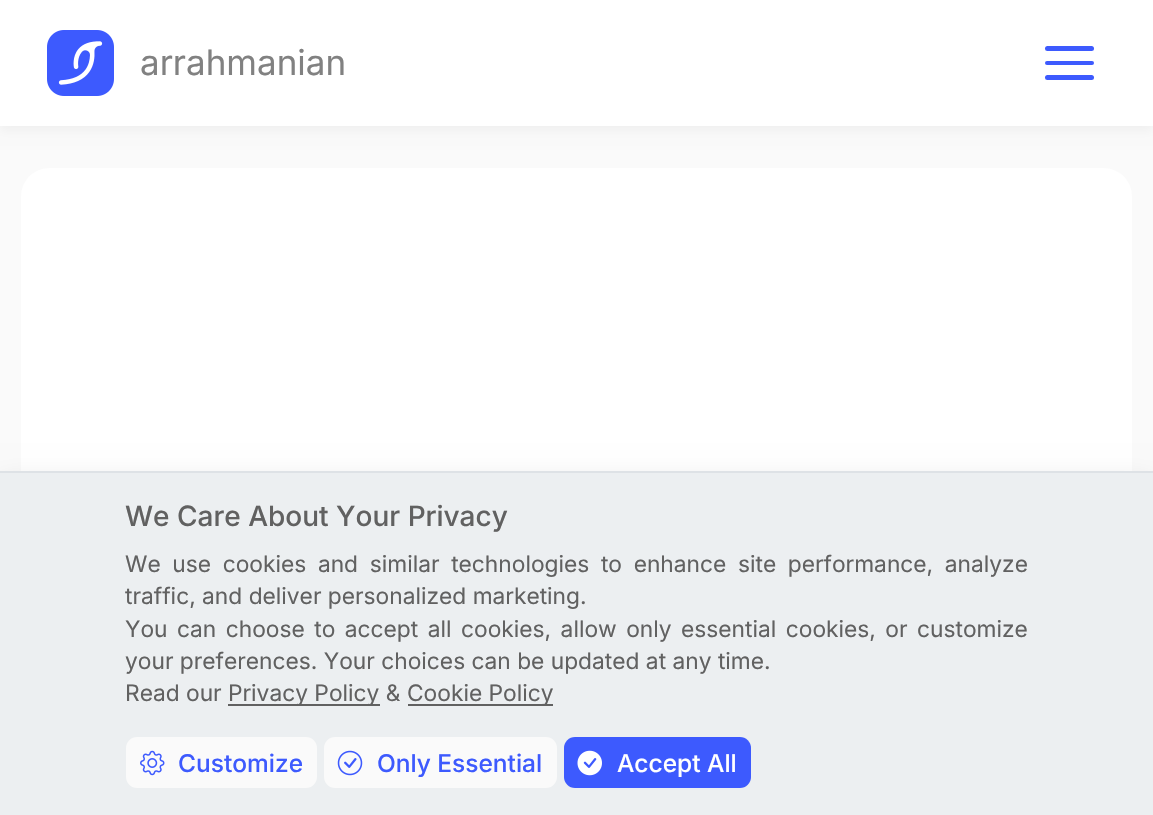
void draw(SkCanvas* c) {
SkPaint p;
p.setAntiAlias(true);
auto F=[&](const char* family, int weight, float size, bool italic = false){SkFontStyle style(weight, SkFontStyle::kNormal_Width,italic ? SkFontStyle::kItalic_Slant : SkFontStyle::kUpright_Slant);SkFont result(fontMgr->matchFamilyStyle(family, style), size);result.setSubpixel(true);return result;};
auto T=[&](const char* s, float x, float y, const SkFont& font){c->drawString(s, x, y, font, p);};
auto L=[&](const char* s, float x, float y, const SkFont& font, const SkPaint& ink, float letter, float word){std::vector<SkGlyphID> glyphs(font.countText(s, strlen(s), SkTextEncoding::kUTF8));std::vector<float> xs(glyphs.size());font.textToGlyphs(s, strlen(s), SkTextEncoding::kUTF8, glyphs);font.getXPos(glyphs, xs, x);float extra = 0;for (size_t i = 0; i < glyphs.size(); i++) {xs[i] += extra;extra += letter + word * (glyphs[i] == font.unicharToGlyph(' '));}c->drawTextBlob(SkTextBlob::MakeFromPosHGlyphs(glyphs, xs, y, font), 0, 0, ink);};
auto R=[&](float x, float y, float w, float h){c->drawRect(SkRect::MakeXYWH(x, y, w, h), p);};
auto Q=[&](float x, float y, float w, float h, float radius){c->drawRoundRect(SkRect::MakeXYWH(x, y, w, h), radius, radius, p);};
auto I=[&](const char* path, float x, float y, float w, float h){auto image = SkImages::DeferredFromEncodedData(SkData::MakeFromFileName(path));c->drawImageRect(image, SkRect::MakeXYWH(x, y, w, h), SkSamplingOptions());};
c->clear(0xfffafafa);
p.setColor(0x0a000000);
p.setMaskFilter(SkMaskFilter::MakeBlur(kNormal_SkBlurStyle, 5));
c->drawRect(SkRect::MakeXYWH(0,5,1153,126),p);
p.setMaskFilter(nullptr);
p.setColor(0xffffffff);
R(0,0,1153,126);
I("1.png",47,30,67,66);
auto f1 = F("Inter",400,35);
p.setColor(0xff818181);
T("arrahmanian",140,75,f1);
p.setColor(0xff3d5afe);
Q(1045,46,49,5,2.5);
Q(1045,61,49,4,2);
Q(1045,75,49,5,2.5);
p.setColor(0xffffffff);
Q(21,168,1111,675,28);
p.setColor(0x26000000);
p.setMaskFilter(SkMaskFilter::MakeBlur(kNormal_SkBlurStyle, 14));
c->drawRect(SkRect::MakeXYWH(0,485,1153,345),p);
p.setMaskFilter(nullptr);
p.setColor(0xffeceff1);
R(0,473,1153,342);
p.setColor(0xffdee2e6);
R(0,471,1153,2);
auto f2 = F("Inter",500,28);
p.setColor(0xff616161);
T("We Care About Your Privacy",125,526,f2);
auto f3 = F("Inter",400,22.75);
L("We use cookies and similar technologies to enhance site performance, analyze",125,572,f3,p,0,5.25);
T("traffic, and deliver personalized marketing.",125,604,f3);
L("You can choose to accept all cookies, allow only essential cookies, or customize",125,637,f3,p,0,3.1);
T("your preferences. Your choices can be updated at any time.",125,669,f3);
T("Read our",125,701,f3);
R(228,704,152,2);
T("Privacy Policy &",228,701,f3);
R(408,704,145,2);
T("Cookie Policy",407,701,f3);
p.setColor(0xfffafafa);
Q(126,737,191,51,11);
I("2.png",140,750,25,26);
auto f4 = F("Inter",500,24.5);
p.setColor(0xff3d5afe);
T("Customize",178,772,f4);
p.setColor(0xfffafafa);
Q(324,737,233,51,11);
I("3.png",337,750,26,26);
p.setColor(0xff3d5afe);
T("Only Essential",377,772,f4);
Q(564,737,187,51,11);
I("4.png",577,750,25,26);
p.setColor(0xffffffff);
T("Accept All",617,772,f4);
}
